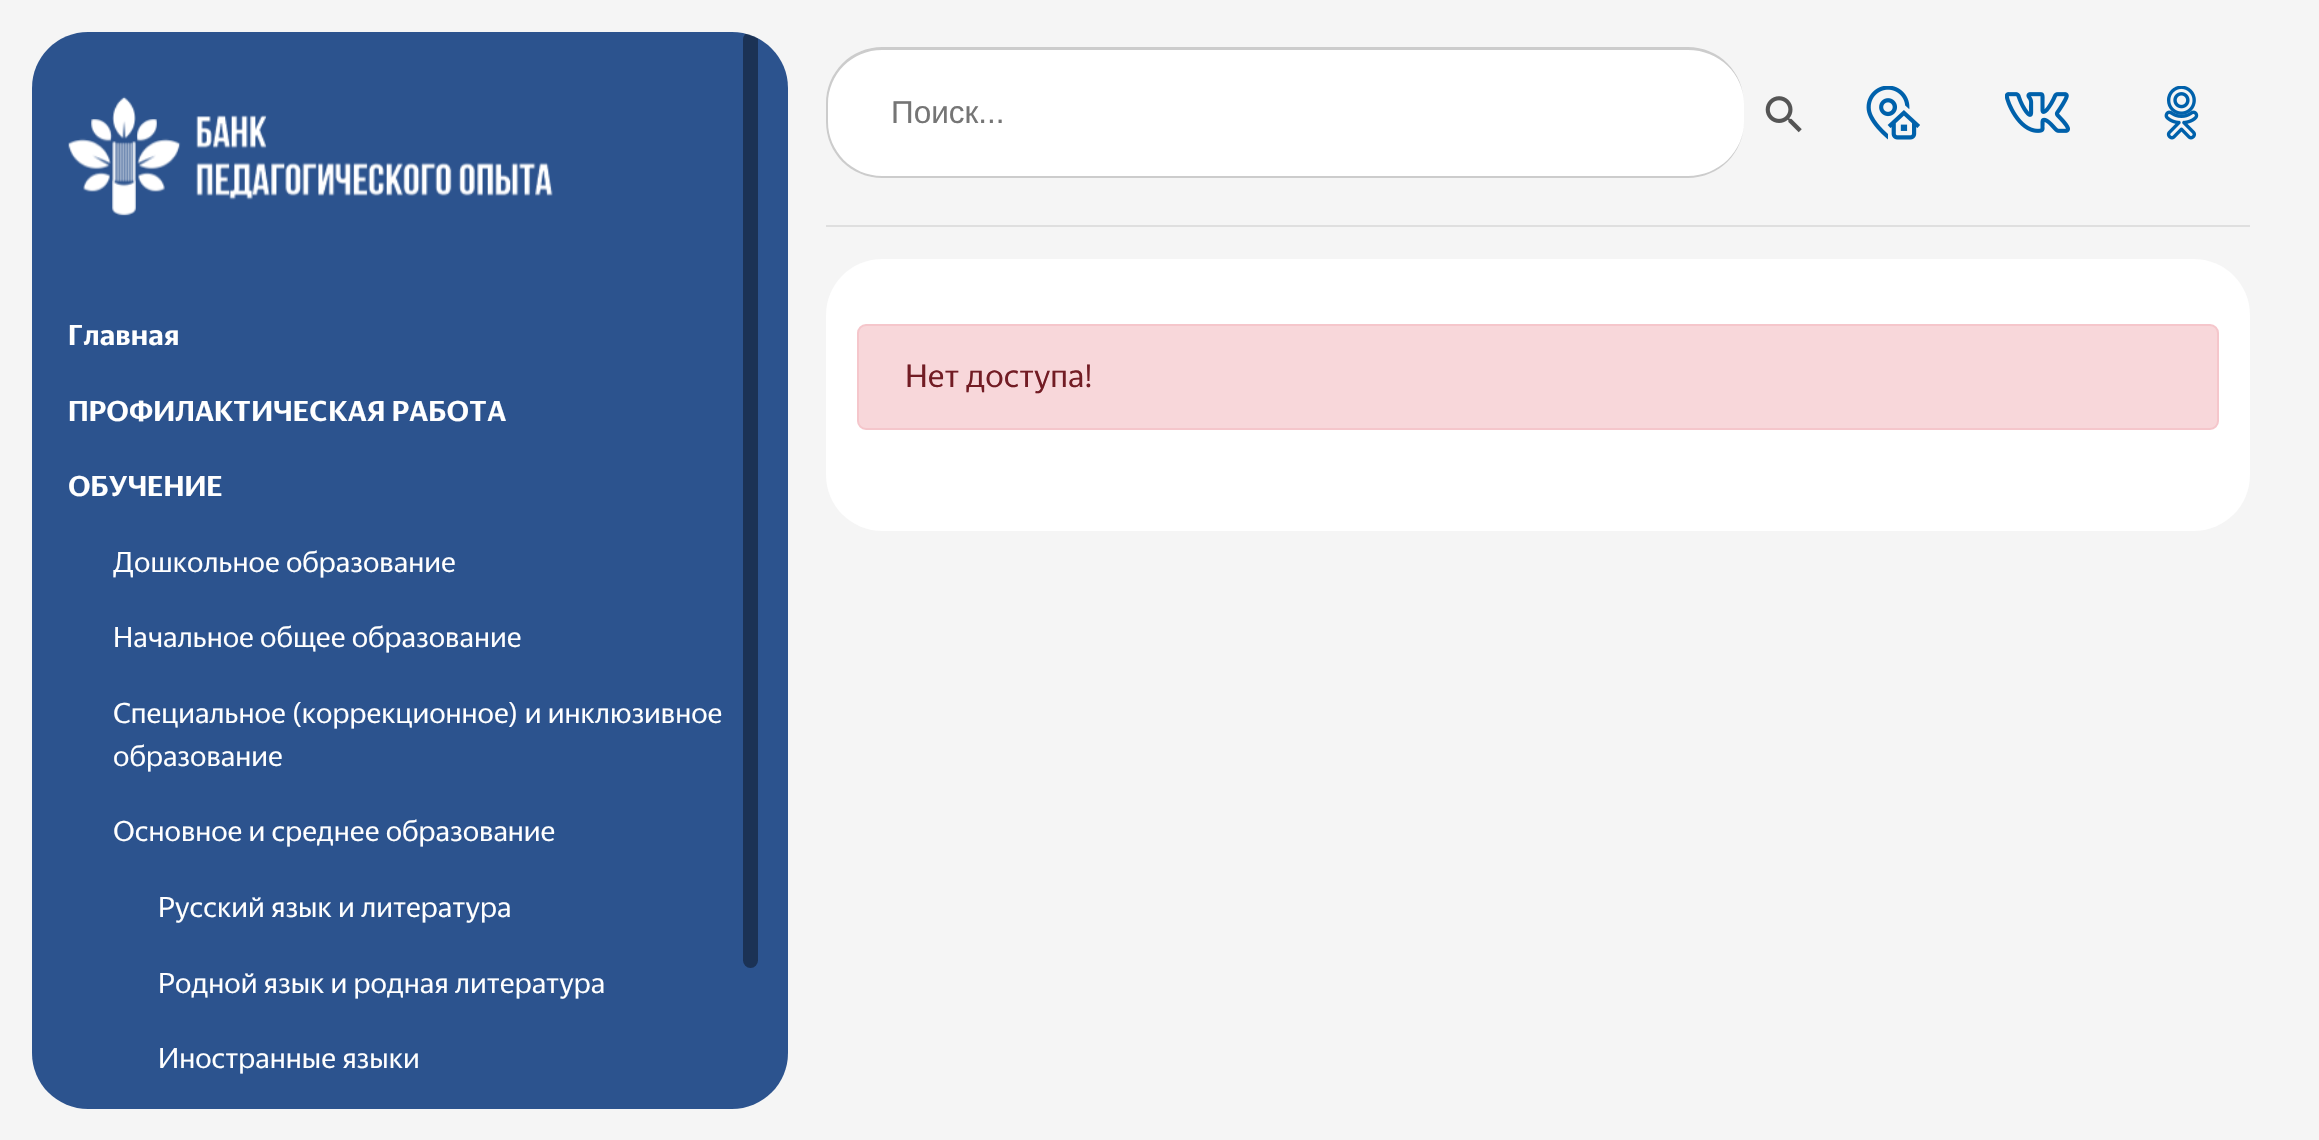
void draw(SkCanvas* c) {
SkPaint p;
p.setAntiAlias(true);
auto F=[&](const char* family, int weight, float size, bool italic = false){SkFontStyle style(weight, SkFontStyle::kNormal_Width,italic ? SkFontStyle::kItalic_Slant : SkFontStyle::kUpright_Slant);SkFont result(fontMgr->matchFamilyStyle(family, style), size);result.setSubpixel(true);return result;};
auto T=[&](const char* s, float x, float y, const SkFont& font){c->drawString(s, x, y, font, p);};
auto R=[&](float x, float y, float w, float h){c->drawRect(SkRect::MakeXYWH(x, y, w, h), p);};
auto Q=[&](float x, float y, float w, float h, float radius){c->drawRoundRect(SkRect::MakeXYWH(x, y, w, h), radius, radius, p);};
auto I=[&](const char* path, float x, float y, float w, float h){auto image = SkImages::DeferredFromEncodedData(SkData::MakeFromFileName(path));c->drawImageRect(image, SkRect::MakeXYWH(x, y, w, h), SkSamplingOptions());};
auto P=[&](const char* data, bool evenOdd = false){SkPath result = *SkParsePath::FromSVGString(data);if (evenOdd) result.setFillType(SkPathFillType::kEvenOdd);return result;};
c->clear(0xfff5f5f5);
p.setColor(0xffdfdfdf);
R(826,225,1424,2);
p.setColor(0xffffffff);
Q(826,47,918,131,56);
p.setColor(0xffcccccc);
c->drawPath(P("M882 47h806c31 0 56 25 56 57v18c0 31-25 56-56 56h-806c-31 0-56-25-56-56v-18c0-32 25-57 56-57zm0 3h806c31 0 56 24 56 54v18c0 29-25 54-56 54h-806c-30 0-54-25-54-54v-18c0-30 24-54 54-54z",true),p);
auto f1 = F("Liberation Sans",400,31.5);
p.setColor(0xff757575);
T("Поиск...",891,123,f1);
I("1.png",1765,96,37,37);
I("2.png",1866,86,54,54);
I("3.png",2005,92,65,41);
I("4.png",2164,86,35,54);
p.setColor(0xffffffff);
Q(826,259,1424,272,56);
p.setColor(0xfff8d7da);
c->drawRoundRect(SkRect::MakeXYWH(858,325,1360,104),8,8,p);
p.setStroke(true);
p.setStrokeWidth(2);
p.setColor(0xfff5c6cb);
c->drawRoundRect(SkRect::MakeXYWH(858,325,1360,104),8,8,p);
auto f2 = F("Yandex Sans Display",400,32.5);
p.setStroke(false);
p.setColor(0xff721c24);
T("Нет доступа!",905,387,f2);
p.setColor(0xff2c538e);
Q(32,32,756,1077,56);
I("5.png",68,96,485,120);
auto f3 = F("Yandex Sans Display",700,28.8);
p.setColor(0xffffffff);
T("Главная",68,345,f3);
T("ПРОФИЛАКТИЧЕСКАЯ РАБОТА",68,421,f3);
T("ОБУЧЕНИЕ",68,496,f3);
auto f4 = F("Yandex Sans Display",400,28.8);
T("Дошкольное образование",113,572,f4);
T("Начальное общее образование",113,647,f4);
T("Специальное (коррекционное) и инклюзивное",113,723,f4);
T("образование",113,766,f4);
T("Основное и среднее образование",113,841,f4);
T("Русский язык и литература",158,917,f4);
T("Родной язык и родная литература",158,993,f4);
T("Иностранные языки",158,1068,f4);
c->save();
c->clipPath(P("M88 32h644c31 0 56 25 56 56v965c0 31-25 56-56 56h-644c-31 0-56-25-56-56v-965c0-31 25-56 56-56z"),true);
p.setColor(0x66000000);
Q(743,32,15,936,7.5);
c->restore();
}
